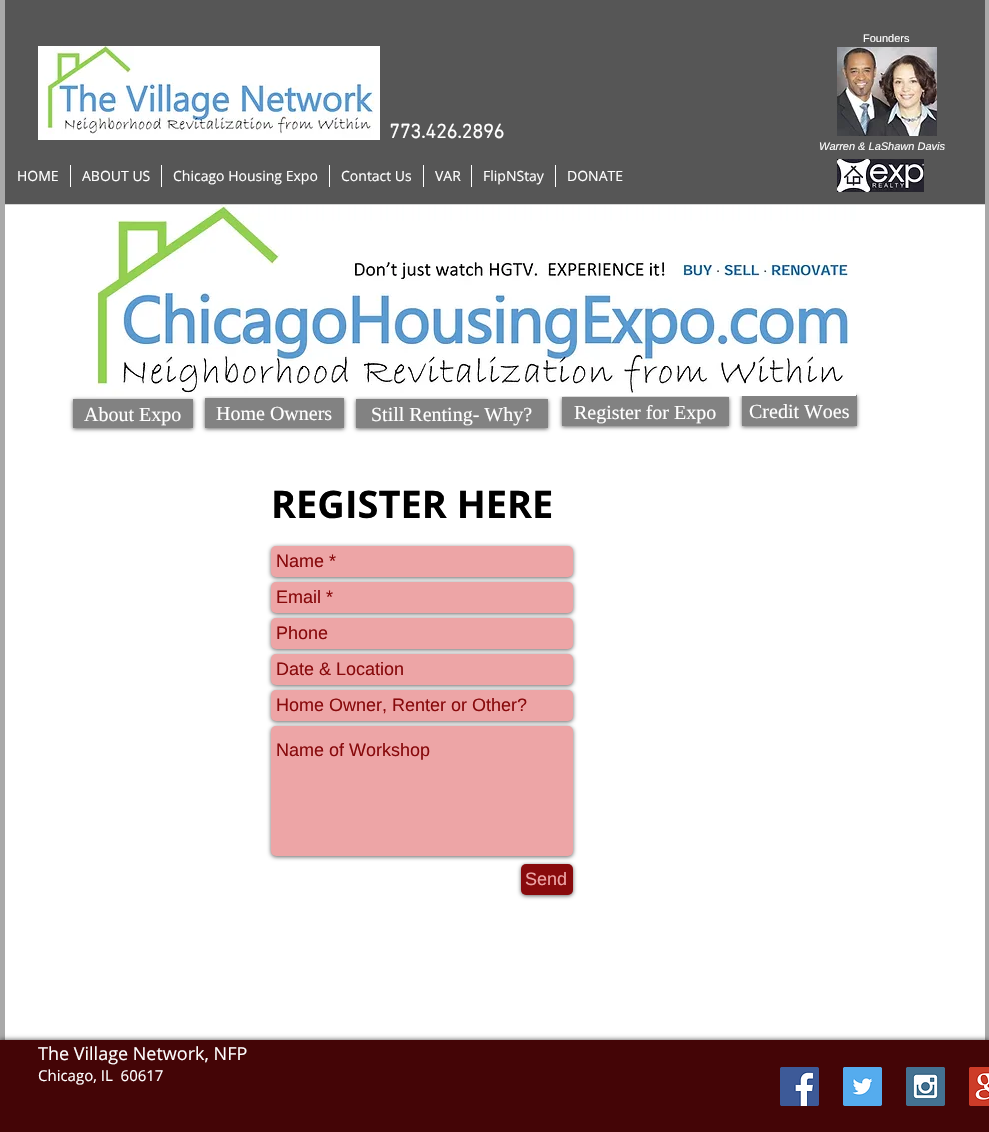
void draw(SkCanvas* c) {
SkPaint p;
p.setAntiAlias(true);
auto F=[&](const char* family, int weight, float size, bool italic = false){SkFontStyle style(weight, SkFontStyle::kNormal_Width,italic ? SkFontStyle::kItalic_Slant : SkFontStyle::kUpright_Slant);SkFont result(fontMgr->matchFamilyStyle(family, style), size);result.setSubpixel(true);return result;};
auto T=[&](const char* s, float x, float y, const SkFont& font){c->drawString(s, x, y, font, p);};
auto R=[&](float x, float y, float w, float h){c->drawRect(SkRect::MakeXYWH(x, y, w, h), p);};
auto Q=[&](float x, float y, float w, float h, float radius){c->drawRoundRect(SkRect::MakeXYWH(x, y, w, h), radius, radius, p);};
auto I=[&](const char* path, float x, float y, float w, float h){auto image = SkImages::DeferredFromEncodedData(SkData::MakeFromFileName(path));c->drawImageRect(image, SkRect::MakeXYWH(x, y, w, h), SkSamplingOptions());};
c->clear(0xffa9a9a9);
p.setColor(0xff565656);
R(5,0,980,204);
p.setColor(0xffd5d5d5);
R(5,204,980,1);
auto f1 = F("Liberation Sans",400,11);
p.setColor(0xffffffff);
T("Founders",863,42,f1);
I("1.png",38,46,342,94);
auto f2 = F("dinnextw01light",700,20);
T("773.426.2896",389,138,f2);
I("2.png",837,47,100,89);
auto f3 = F("Liberation Sans",400,11,true);
T("Warren & LaShawn Davis",819,150,f3);
auto f4 = F("Open Sans",400,14);
T("HOME",17,181,f4);
R(70,165,1,22);
T("ABOUT US",82,181,f4);
R(161,165,1,22);
T("Chicago Housing Expo",173,181,f4);
R(329,165,1,22);
T("Contact Us",341,181,f4);
R(423,165,1,22);
T("VAR",435,181,f4);
R(471,165,1,22);
T("FlipNStay",483,181,f4);
R(555,165,1,22);
T("DONATE",567,181,f4);
I("3.png",837,159,87,33);
R(5,205,980,835);
p.setColor(0x99000000);
p.setMaskFilter(SkMaskFilter::MakeBlur(kNormal_SkBlurStyle, 2));
c->drawRect(SkRect::MakeXYWH(73,400,120,29),p);
p.setMaskFilter(nullptr);
p.setMaskFilter(SkMaskFilter::MakeBlur(kNormal_SkBlurStyle, 2));
c->drawRect(SkRect::MakeXYWH(205,399,139,30),p);
p.setMaskFilter(nullptr);
p.setMaskFilter(SkMaskFilter::MakeBlur(kNormal_SkBlurStyle, 2));
c->drawRect(SkRect::MakeXYWH(356,400,192,29),p);
p.setMaskFilter(nullptr);
p.setMaskFilter(SkMaskFilter::MakeBlur(kNormal_SkBlurStyle, 2));
c->drawRect(SkRect::MakeXYWH(562,398,167,29),p);
p.setMaskFilter(nullptr);
p.setMaskFilter(SkMaskFilter::MakeBlur(kNormal_SkBlurStyle, 2));
c->drawRect(SkRect::MakeXYWH(742,396,115,31),p);
p.setMaskFilter(nullptr);
p.setColor(0xff828282);
R(742,395,115,31);
I("4.png",96,205,760,191);
R(73,399,120,29);
auto f5 = F("Liberation Serif",400,20);
p.setColor(0xffffffff);
T("About Expo",84,421,f5);
p.setColor(0xff828282);
R(205,398,139,30);
p.setColor(0xffffffff);
T("Home Owners",216,420,f5);
p.setColor(0xff828282);
R(356,399,192,29);
p.setColor(0xffffffff);
T("Still Renting- Why?",371,421,f5);
p.setColor(0xff828282);
R(562,397,167,29);
p.setColor(0xffffffff);
T("Register for Expo",574,419,f5);
T("Credit Woes",749,418,f5);
auto f6 = F("Open Sans",700,38);
p.setColor(0xff000000);
T("REGISTER HERE",271,518,f6);
p.setColor(0x99000000);
p.setMaskFilter(SkMaskFilter::MakeBlur(kNormal_SkBlurStyle, 2));
c->drawRoundRect(SkRect::MakeXYWH(271,547,302,31),5,5,p);
p.setMaskFilter(nullptr);
p.setColor(0xffeda5a6);
Q(271,546,302,31,5);
auto f7 = F("Liberation Sans",400,18);
p.setColor(0xff880a0c);
T("Name *",276,567,f7);
p.setColor(0x99000000);
p.setMaskFilter(SkMaskFilter::MakeBlur(kNormal_SkBlurStyle, 2));
c->drawRoundRect(SkRect::MakeXYWH(271,583,302,31),5,5,p);
p.setMaskFilter(nullptr);
p.setColor(0xffeda5a6);
Q(271,582,302,31,5);
p.setColor(0xff880a0c);
T("Email *",276,603,f7);
p.setColor(0x99000000);
p.setMaskFilter(SkMaskFilter::MakeBlur(kNormal_SkBlurStyle, 2));
c->drawRoundRect(SkRect::MakeXYWH(271,619,302,31),5,5,p);
p.setMaskFilter(nullptr);
p.setColor(0xffeda5a6);
Q(271,618,302,31,5);
p.setColor(0xff880a0c);
T("Phone",276,639,f7);
p.setColor(0x99000000);
p.setMaskFilter(SkMaskFilter::MakeBlur(kNormal_SkBlurStyle, 2));
c->drawRoundRect(SkRect::MakeXYWH(271,655,302,31),5,5,p);
p.setMaskFilter(nullptr);
p.setColor(0xffeda5a6);
Q(271,654,302,31,5);
p.setColor(0xff880a0c);
T("Date & Location",276,675,f7);
p.setColor(0x99000000);
p.setMaskFilter(SkMaskFilter::MakeBlur(kNormal_SkBlurStyle, 2));
c->drawRoundRect(SkRect::MakeXYWH(271,691,302,31),5,5,p);
p.setMaskFilter(nullptr);
p.setColor(0xffeda5a6);
Q(271,690,302,31,5);
p.setColor(0xff880a0c);
T("Home Owner, Renter or Other?",276,711,f7);
p.setColor(0x99000000);
p.setMaskFilter(SkMaskFilter::MakeBlur(kNormal_SkBlurStyle, 2));
c->drawRoundRect(SkRect::MakeXYWH(271,727,302,130),5,5,p);
p.setMaskFilter(nullptr);
p.setColor(0xffeda5a6);
Q(271,726,302,130,5);
p.setColor(0xff880a0c);
T("Name of Workshop",276,756,f7);
p.setColor(0x99000000);
p.setMaskFilter(SkMaskFilter::MakeBlur(kNormal_SkBlurStyle, 2));
c->drawRoundRect(SkRect::MakeXYWH(521,865,52,31),5,5,p);
p.setMaskFilter(nullptr);
p.setColor(0xff880a0c);
Q(521,864,52,31,5);
p.setColor(0xffeda5a6);
T("Send",525,885,f7);
p.setColor(0xb3000000);
p.setMaskFilter(SkMaskFilter::MakeBlur(kNormal_SkBlurStyle, 2.5));
c->drawRect(SkRect::MakeXYWH(0,1040,989,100),p);
p.setMaskFilter(nullptr);
p.setColor(0xff440506);
R(0,1040,989,92);
auto f8 = F("Open Sans",400,18);
p.setColor(0xffffffff);
T("The Village Network, NFP",38,1060,f8);
auto f9 = F("Open Sans",400,15);
T("Chicago, IL  60617",38,1081,f9);
I("5.png",780,1067,39,39);
I("6.png",843,1067,39,39);
I("7.png",906,1067,39,39);
I("8.png",969,1067,20,39);
}
